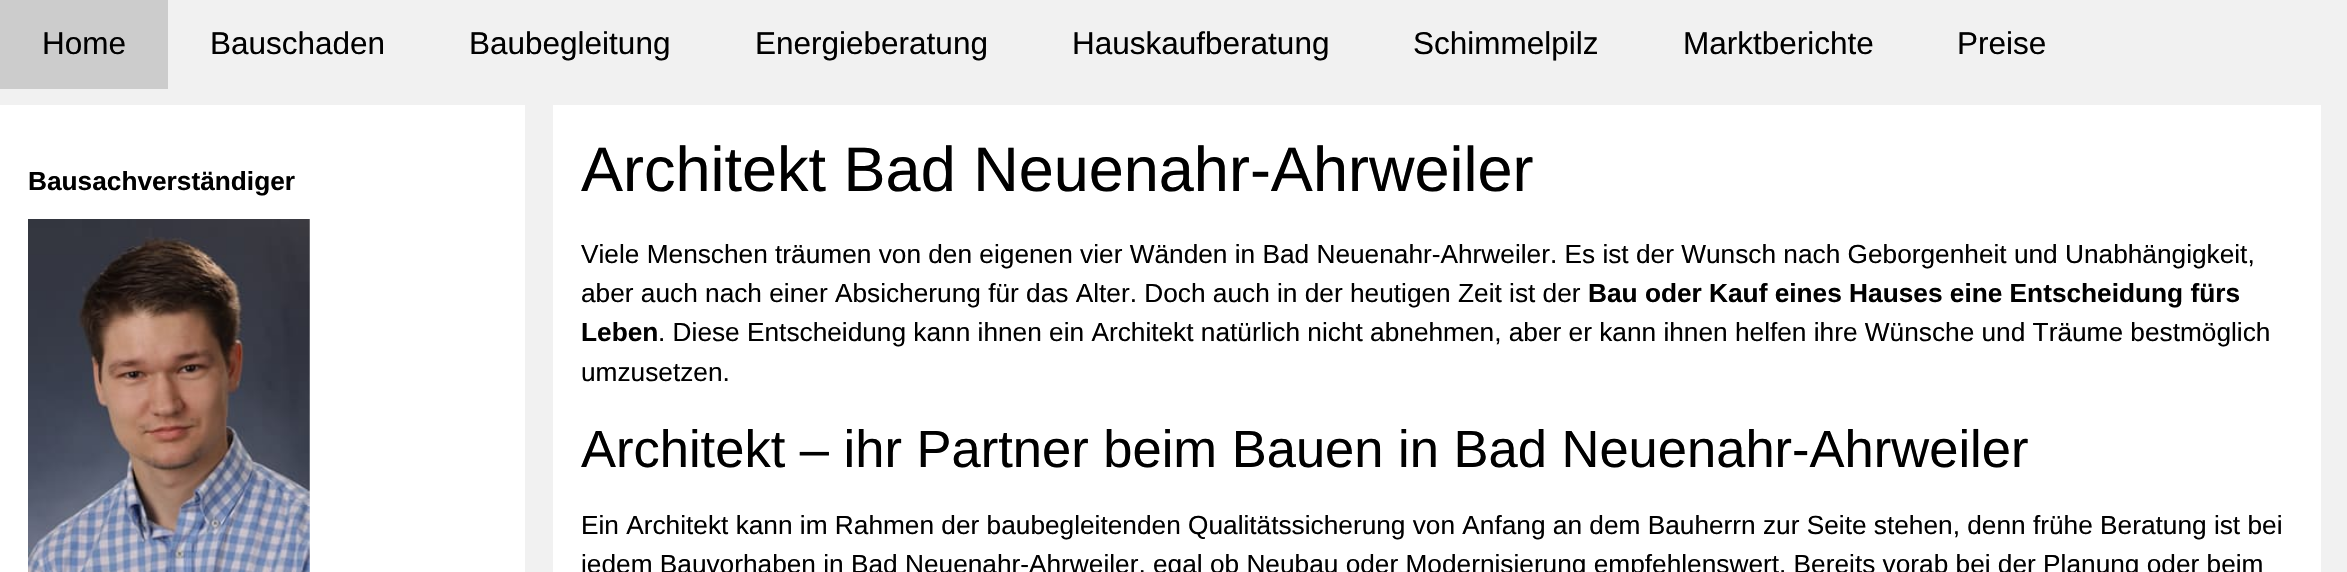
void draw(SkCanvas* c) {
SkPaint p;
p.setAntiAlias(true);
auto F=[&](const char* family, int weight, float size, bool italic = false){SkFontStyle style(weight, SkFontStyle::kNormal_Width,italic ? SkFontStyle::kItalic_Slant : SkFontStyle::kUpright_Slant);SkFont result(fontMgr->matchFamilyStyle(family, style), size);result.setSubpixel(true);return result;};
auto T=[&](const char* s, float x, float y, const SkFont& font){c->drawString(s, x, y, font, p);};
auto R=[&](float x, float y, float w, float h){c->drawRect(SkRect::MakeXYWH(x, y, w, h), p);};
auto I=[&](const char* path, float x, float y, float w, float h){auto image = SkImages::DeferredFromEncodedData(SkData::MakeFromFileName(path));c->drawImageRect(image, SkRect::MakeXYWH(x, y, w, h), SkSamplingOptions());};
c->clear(0xfff1f1f1);
p.setColor(0xffcccccc);
R(0,0,168,89);
auto f1 = F("Liberation Sans",400,31.5);
p.setColor(0xff000000);
T("Home",42,54,f1);
T("Bauschaden",210,54,f1);
T("Baubegleitung",469,54,f1);
T("Energieberatung",755,54,f1);
T("Hauskaufberatung",1072,54,f1);
T("Schimmelpilz",1413,54,f1);
T("Marktberichte",1683,54,f1);
T("Preise",1957,54,f1);
p.setColor(0xffffffff);
R(0,105,525,467);
auto f2 = F("Liberation Sans",700,26.25);
p.setColor(0xff000000);
T("Bausachverständiger",28,190,f2);
I("1.png",28,219,282,353);
p.setColor(0xffffffff);
R(553,105,1768,467);
auto f3 = F("Liberation Sans",400,63);
p.setColor(0xff000000);
T("Architekt Bad Neuenahr-Ahrweiler",581,191,f3);
auto f4 = F("Liberation Sans",400,26.25);
T("Viele Menschen träumen von den eigenen vier Wänden in Bad Neuenahr-Ahrweiler. Es ist der Wunsch nach Geborgenheit und Unabhängigkeit,",581,263,f4);
T("aber auch nach einer Absicherung für das Alter. Doch auch in der heutigen Zeit ist der",581,302,f4);
T("Bau oder Kauf eines Hauses eine Entscheidung fürs",1588,302,f2);
T("Leben",581,341,f2);
T(". Diese Entscheidung kann ihnen ein Architekt natürlich nicht abnehmen, aber er kann ihnen helfen ihre Wünsche und Träume bestmöglich",658,341,f4);
T("umzusetzen.",581,381,f4);
auto f5 = F("Liberation Sans",400,52.5);
T("Architekt – ihr Partner beim Bauen in Bad Neuenahr-Ahrweiler",581,467,f5);
T("Ein Architekt kann im Rahmen der baubegleitenden Qualitätssicherung von Anfang an dem Bauherrn zur Seite stehen, denn frühe Beratung ist bei",581,534,f4);
T("jedem Bauvorhaben in Bad Neuenahr-Ahrweiler, egal ob Neubau oder Modernisierung empfehlenswert. Bereits vorab bei der Planung oder beim",581,573,f4);
}
